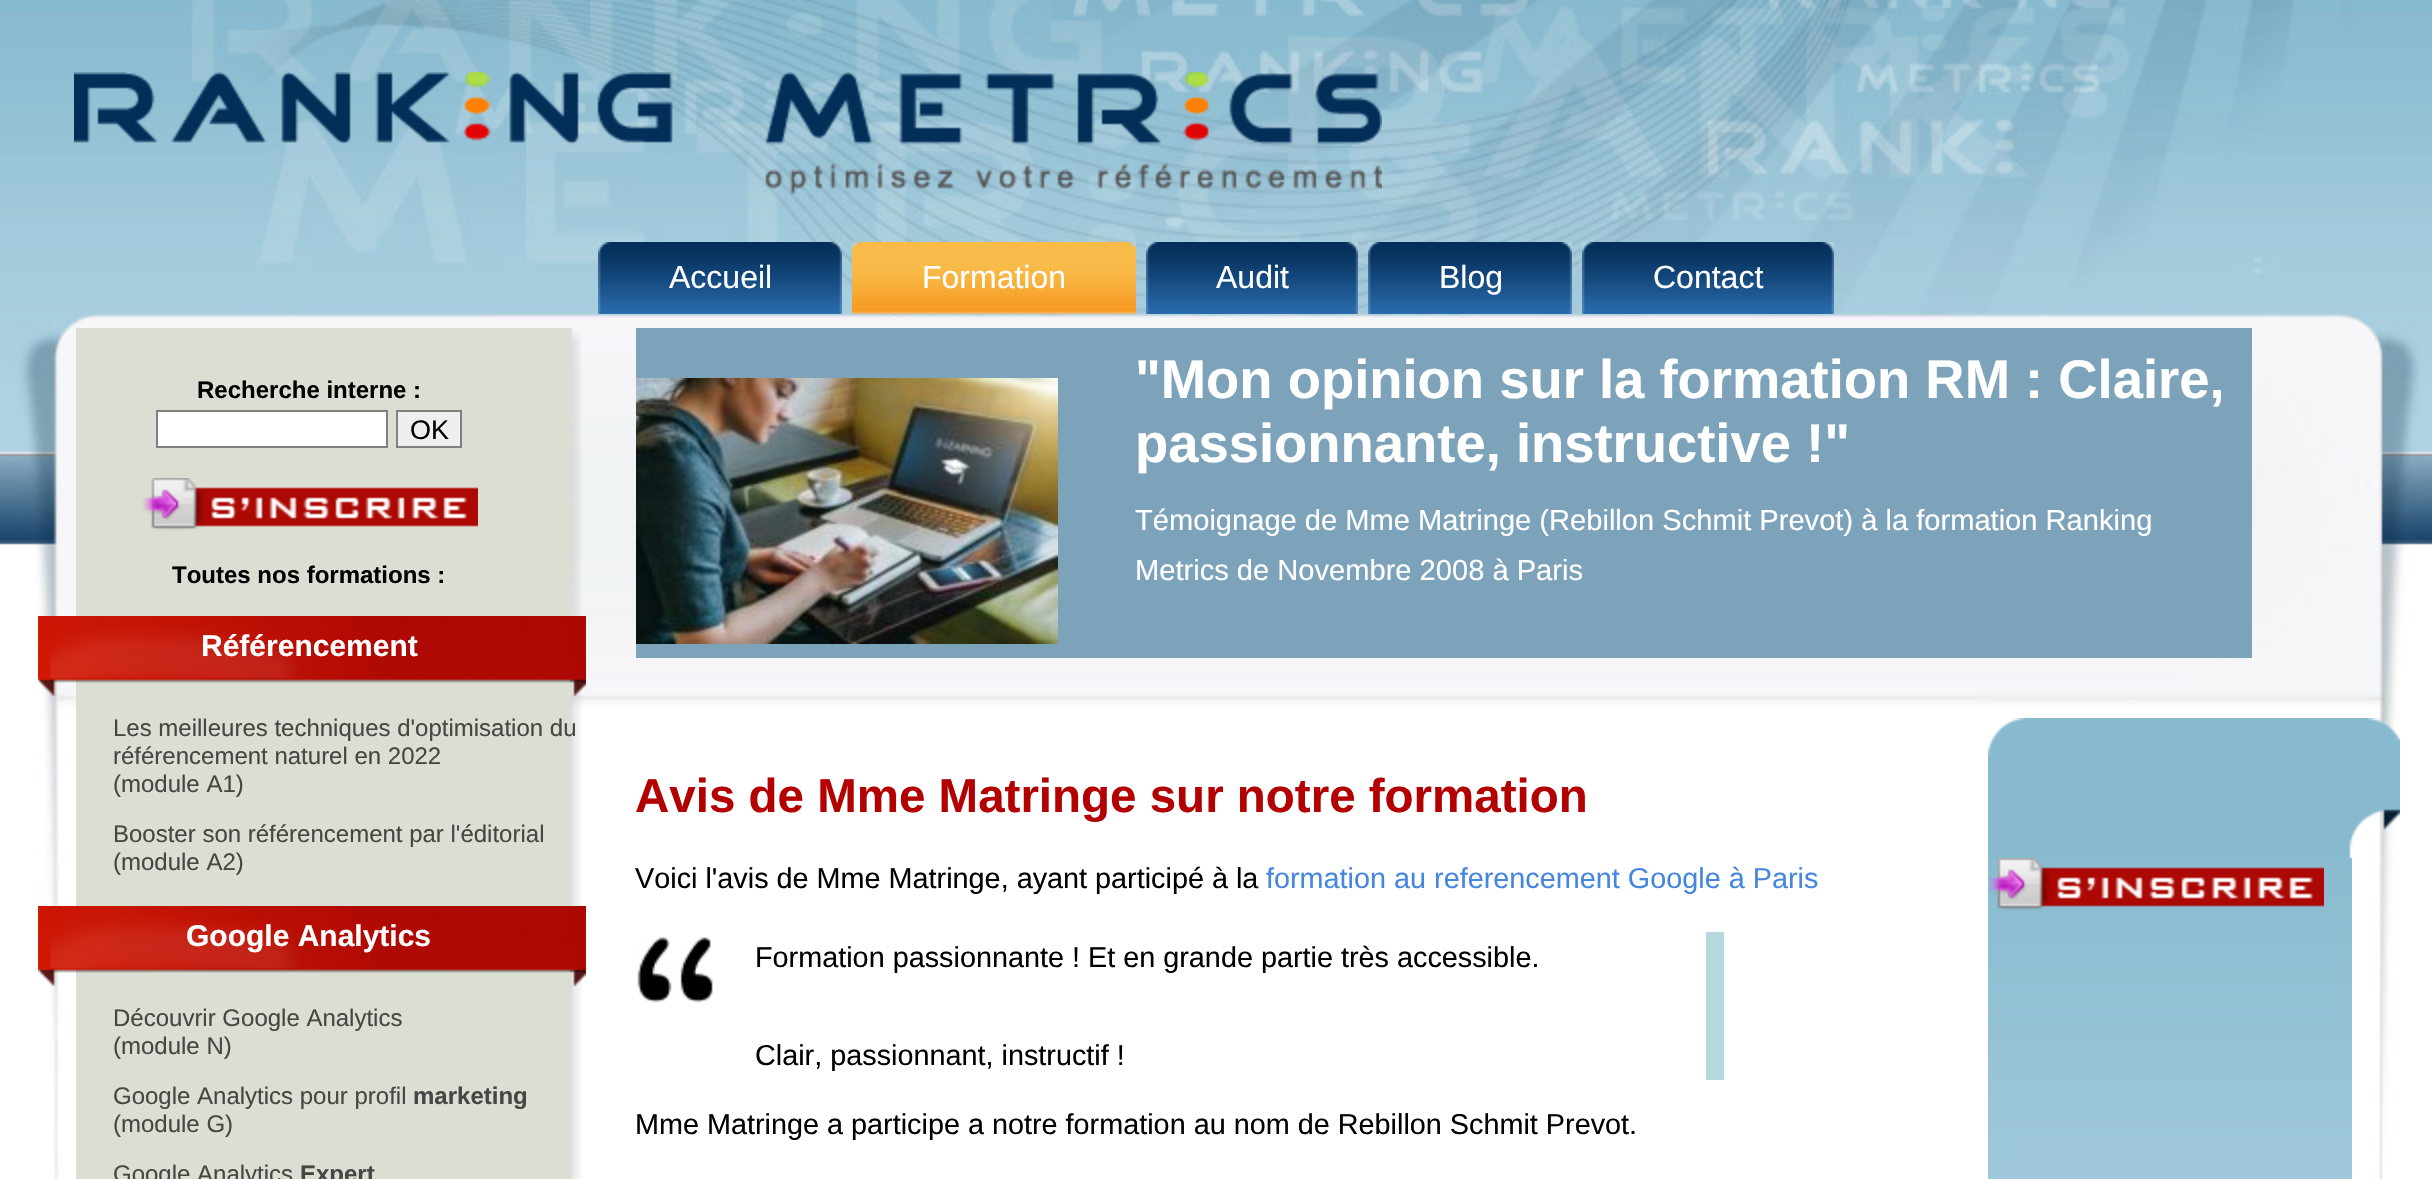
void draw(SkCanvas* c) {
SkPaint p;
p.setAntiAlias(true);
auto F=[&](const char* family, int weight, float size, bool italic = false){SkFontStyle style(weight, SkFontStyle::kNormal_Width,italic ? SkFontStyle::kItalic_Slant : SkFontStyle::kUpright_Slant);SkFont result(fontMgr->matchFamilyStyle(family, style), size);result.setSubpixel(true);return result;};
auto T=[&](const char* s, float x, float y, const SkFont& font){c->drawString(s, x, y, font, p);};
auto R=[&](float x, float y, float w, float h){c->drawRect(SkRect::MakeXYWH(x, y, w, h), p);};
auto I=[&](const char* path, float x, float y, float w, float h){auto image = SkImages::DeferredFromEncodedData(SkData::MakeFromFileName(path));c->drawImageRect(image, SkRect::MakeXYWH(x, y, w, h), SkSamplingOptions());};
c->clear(0xffffffff);
I("1.png",0,0,2432,1179);
I("2.png",74,72,1308,122);
I("3.png",610,242,232,72);
I("4.png",598,242,12,72);
auto f1 = F("Liberation Sans",400,32);
p.setColor(0xffffffff);
T("Accueil",669,288,f1);
I("5.png",852,242,284,72);
I("6.png",852,242,10,7);
T("Formation",922,288,f1);
I("7.png",1158,242,200,72);
I("8.png",1146,242,12,72);
T("Audit",1216,288,f1);
I("9.png",1380,242,192,72);
I("8.png",1368,242,12,72);
T("Blog",1439,288,f1);
I("10.png",1594,242,240,72);
I("4.png",1582,242,12,72);
T("Contact",1653,288,f1);
I("11.png",76,328,505,28);
I("12.png",76,356,506,823);
auto f2 = F("Liberation Sans",700,24);
p.setColor(0xff000000);
T("Recherche interne :",197,398,f2);
p.setColor(0xffffffff);
c->drawRect(SkRect::MakeXYWH(157,411,230,36),p);
p.setStroke(true);
p.setStrokeWidth(2);
p.setColor(0xff808080);
c->drawRect(SkRect::MakeXYWH(157,411,230,36),p);
p.setStroke(false);
p.setColor(0xffefefef);
c->drawRect(SkRect::MakeXYWH(397,411,64,36),p);
p.setStroke(true);
p.setColor(0xff808080);
c->drawRect(SkRect::MakeXYWH(397,411,64,36),p);
auto f3 = F("Liberation Sans",400,27);
p.setStroke(false);
p.setColor(0xff000000);
T("OK",410,439,f3);
I("13.png",142,478,336,53);
T("Toutes nos formations :",172,583,f2);
I("14.png",38,616,548,80);
auto f4 = F("Liberation Sans",700,30);
p.setColor(0xffffffff);
T("Référencement",201,656,f4);
auto f5 = F("Liberation Sans",400,24);
p.setColor(0xff484545);
T("Les meilleures techniques d'optimisation du",113,736,f5);
T("référencement naturel en 2022",113,764,f5);
T("(module A1)",113,792,f5);
T("Booster son référencement par l'éditorial",113,842,f5);
T("(module A2)",113,870,f5);
I("15.png",38,906,548,80);
p.setColor(0xffffffff);
T("Google Analytics",186,946,f4);
p.setColor(0xff484545);
T("Découvrir Google Analytics",113,1026,f5);
T("(module N)",113,1054,f5);
T("Google Analytics pour profil",113,1104,f5);
T("marketing",413,1104,f2);
T("(module G)",113,1132,f5);
T("Google Analytics",113,1182,f5);
T("Expert",300,1182,f2);
p.setColor(0xff7da3ba);
R(636,328,1616,330);
I("16.png",636,378,422,266);
auto f6 = F("Liberation Sans",700,54.4);
p.setColor(0xffffffff);
T("\"Mon opinion sur la formation RM : Claire,",1135,398,f6);
T("passionnante, instructive !\"",1135,462,f6);
auto f7 = F("Liberation Sans",400,29.1);
T("Témoignage de Mme Matringe (Rebillon Schmit Prevot) à la formation Ranking",1135,530,f7);
T("Metrics de Novembre 2008 à Paris",1135,580,f7);
auto f8 = F("Liberation Sans",700,47.5);
p.setColor(0xffb20100);
T("Avis de Mme Matringe sur notre formation",635,812,f8);
auto f9 = F("Liberation Sans",400,28.8);
p.setColor(0xff000000);
T("Voici l'avis de Mme Matringe, ayant participé à la",635,888,f9);
p.setColor(0xff4586df);
T("formation au referencement Google à Paris",1266,888,f9);
I("17.png",637,937,76,66);
p.setColor(0xffb6d9dd);
R(1706,932,18,148);
p.setColor(0xff000000);
T("Formation passionnante ! Et en grande partie très accessible.",755,967,f9);
T("Clair, passionnant, instructif !",755,1065,f9);
T("Mme Matringe a participe a notre formation au nom de Rebillon Schmit Prevot.",635,1134,f9);
I("18.png",1988,718,412,140);
I("19.png",1988,858,364,321);
I("20.png",1988,858,336,53);
}
